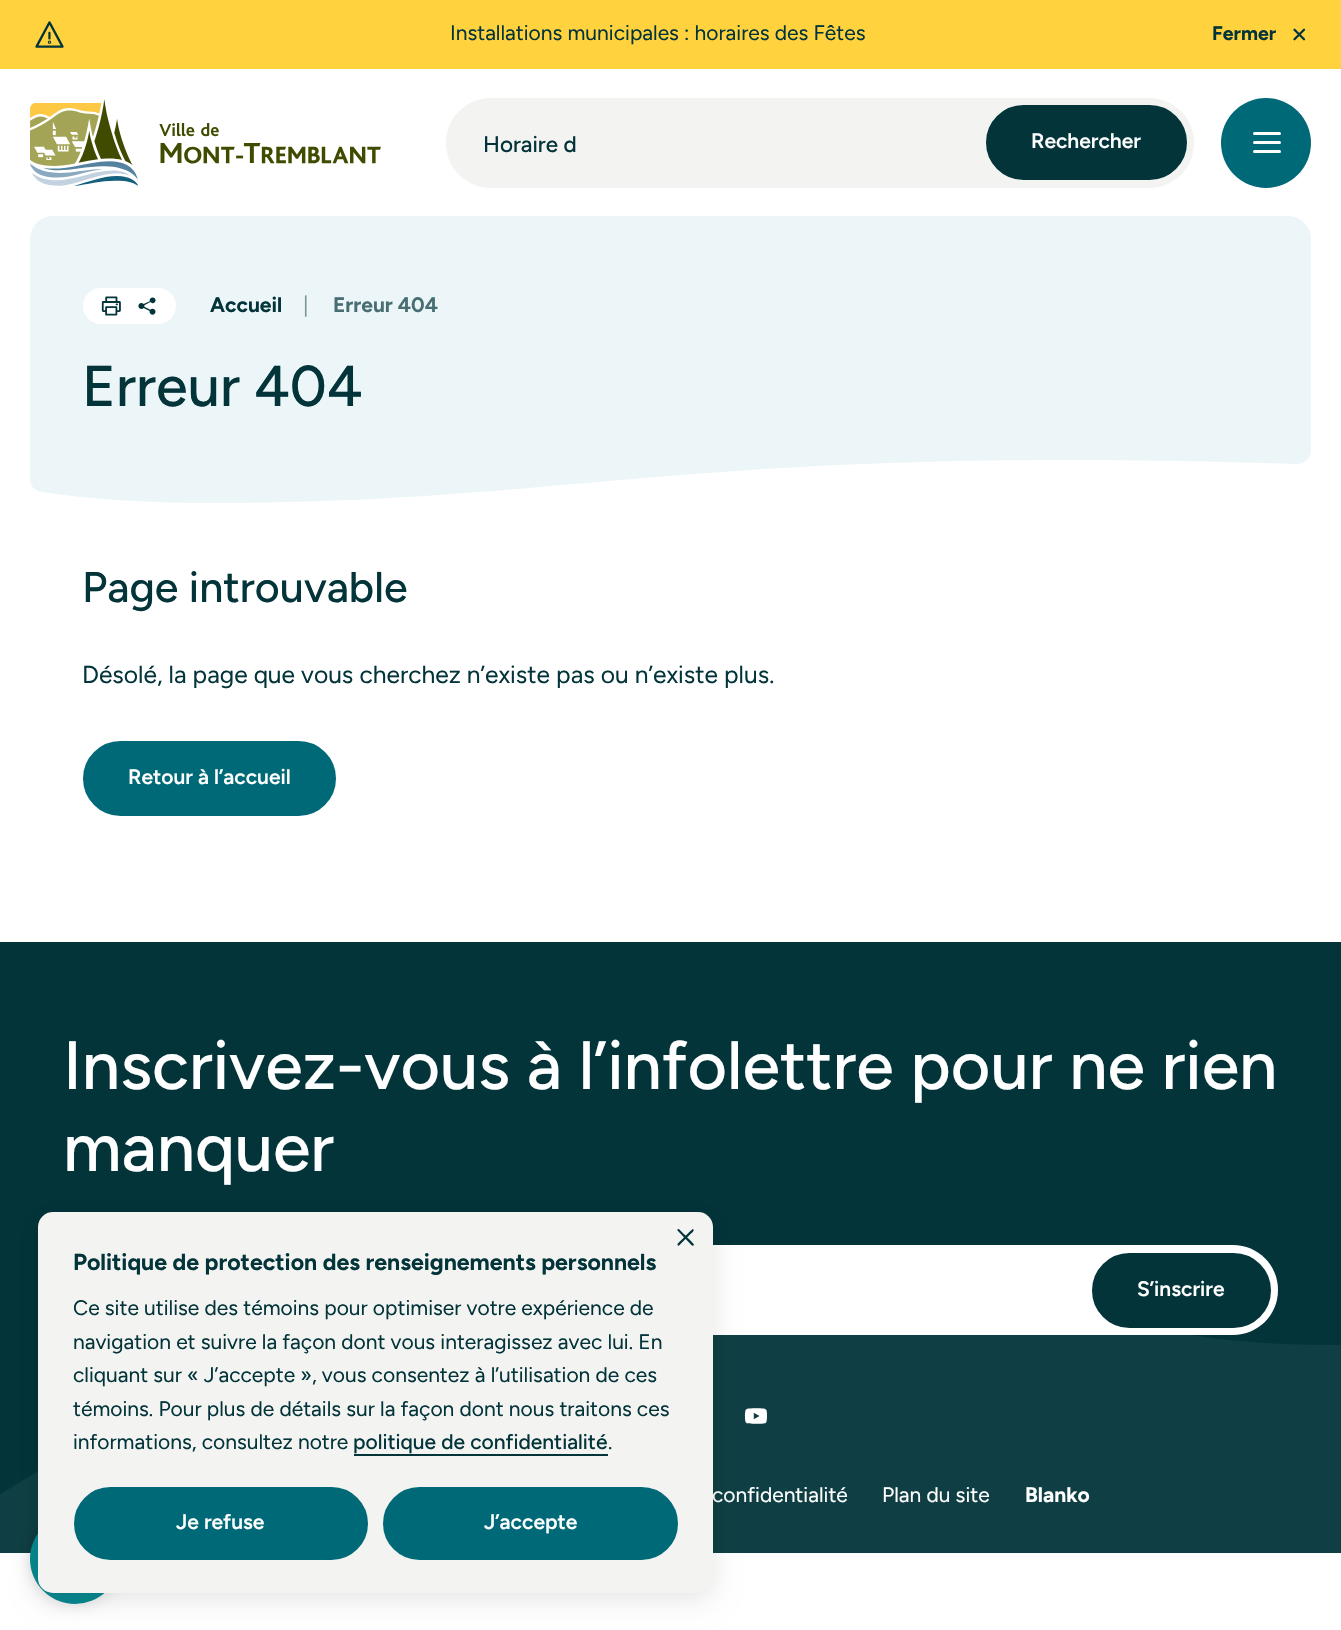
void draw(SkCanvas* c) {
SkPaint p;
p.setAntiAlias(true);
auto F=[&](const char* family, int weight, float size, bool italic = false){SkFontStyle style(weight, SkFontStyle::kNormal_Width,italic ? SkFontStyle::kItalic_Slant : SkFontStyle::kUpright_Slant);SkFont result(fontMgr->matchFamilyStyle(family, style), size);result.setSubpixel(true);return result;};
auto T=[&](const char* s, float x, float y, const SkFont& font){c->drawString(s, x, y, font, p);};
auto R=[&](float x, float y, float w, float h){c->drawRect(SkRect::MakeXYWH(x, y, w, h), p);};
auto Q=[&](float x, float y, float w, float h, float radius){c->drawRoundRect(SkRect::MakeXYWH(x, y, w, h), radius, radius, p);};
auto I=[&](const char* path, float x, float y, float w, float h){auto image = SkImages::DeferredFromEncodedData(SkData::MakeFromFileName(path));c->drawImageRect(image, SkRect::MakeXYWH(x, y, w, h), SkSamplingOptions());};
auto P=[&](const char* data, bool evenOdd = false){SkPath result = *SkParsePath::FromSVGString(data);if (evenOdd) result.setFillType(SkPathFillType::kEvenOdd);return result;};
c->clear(0xffffffff);
p.setColor(0xffffd23e);
R(0,0,1341,69);
I("1.png",35,21,29,27);
auto f1 = F("Figtree",400,21);
p.setColor(0xff02343a);
T("Installations municipales : horaires des Fêtes",450,40,f1);
auto f2 = F("Figtree",700,19.5);
T("Fermer",1212,40,f2);
I("2.png",1293,28,13,13);
I("3.png",30,99,351,87);
p.setColor(0xfff3f3f1);
c->drawPath(P("M491 98h495v90h-495c-25 0-45-20-45-45c0-25 20-45 45-45z"),p);
auto f3 = F("Figtree",500,22.5);
p.setColor(0xff02343a);
T("Horaire d",483,152,f3);
p.setColor(0xfff3f3f1);
c->drawPath(P("M986 98h163c25 0 45 20 45 45c0 25-20 45-45 45h-163z"),p);
p.setColor(0xff02343a);
c->drawRoundRect(SkRect::MakeXYWH(987,106,199,73),36.5,36.5,p);
p.setStroke(true);
p.setStrokeWidth(2);
c->drawRoundRect(SkRect::MakeXYWH(987,106,199,73),36.5,36.5,p);
auto f4 = F("Figtree",600,21);
p.setStroke(false);
p.setColor(0xffffffff);
T("Rechercher",1031,148,f4);
p.setColor(0xff006978);
c->drawCircle(1266,143,45,p);
p.setColor(0xffffffff);
Q(1253,132,28,3,1.5);
Q(1253,141,28,3,1.5);
Q(1253,150,28,3,1.5);
p.setColor(0xffecf6f8);
c->drawPath(P("M53 216h1235c12.5 0 23 10.5 23 23v264h-1281v-264c0-12.5 10.5-23 23-23z"),p);
p.setColor(0xffffffff);
Q(83,288,93,36,18);
I("4.png",101,296,20,20);
I("5.png",138,297,18,18);
auto f5 = F("Figtree",700,21);
p.setColor(0xff02343a);
T("Accueil",210,312,f5);
p.setColor(0xff779599);
T("|",303,312,f1);
p.setColor(0xff486e73);
T("Erreur 404",333,312,f5);
auto f6 = F("Figtree",500,57.5);
p.setColor(0xff02343a);
T("Erreur 404",82,406,f6);
p.setColor(0xffffffff);
c->drawPath(P("M30 479v24h1281v-53c0 8-7 14-14 14c-363-12-551 5-723 20c-114 10-220 19-367 19c-62 0-117-4-165-11c-7-1-12-6-12-13z",true),p);
auto f7 = F("Figtree",500,43);
p.setColor(0xff02343a);
T("Page introuvable",82,602,f7);
auto f8 = F("Figtree",400,24.6);
T("Désolé, la page que vous cherchez n’existe pas ou n’existe plus.",82,683,f8);
p.setColor(0xff006978);
c->drawRoundRect(SkRect::MakeXYWH(84,742,251,73),36.5,36.5,p);
p.setStroke(true);
c->drawRoundRect(SkRect::MakeXYWH(84,742,251,73),36.5,36.5,p);
p.setStroke(false);
p.setColor(0xffffffff);
T("Retour à l’accueil",128,784,f4);
p.setColor(0xff02343a);
R(0,942,1341,611);
I("6.png",0,1335,1341,218);
auto f9 = F("Figtree",500,68.25);
p.setColor(0xffffffff);
T("Inscrivez-vous à l’infolettre pour ne rien",63,1089,f9);
T("manquer",63,1171,f9);
R(713,1245,379,90);
c->drawPath(P("M1092 1245h141c25 0 45 20 45 45c0 25-20 45-45 45h-141z"),p);
p.setColor(0xff02343a);
c->drawRoundRect(SkRect::MakeXYWH(1093,1254,177,73),36.5,36.5,p);
p.setStroke(true);
c->drawRoundRect(SkRect::MakeXYWH(1093,1254,177,73),36.5,36.5,p);
p.setStroke(false);
p.setColor(0xffffffff);
T("S’inscrire",1137,1296,f4);
I("7.png",744,1408,23,16);
T("confidentialité",712,1502,f1);
T("Plan du site",882,1502,f1);
T("Blanko",1025,1502,f5);
p.setColor(0x26000000);
p.setMaskFilter(SkMaskFilter::MakeBlur(kNormal_SkBlurStyle, 7.5));
c->drawRoundRect(SkRect::MakeXYWH(30,1514,90,90),45,45,p);
p.setMaskFilter(nullptr);
p.setColor(0xff07878f);
c->drawCircle(75,1559,45,p);
p.setColor(0x1a000000);
p.setMaskFilter(SkMaskFilter::MakeBlur(kNormal_SkBlurStyle, 13.5));
c->drawRoundRect(SkRect::MakeXYWH(38,1218,675,381),15,15,p);
p.setMaskFilter(nullptr);
p.setColor(0xfff3f3f1);
Q(38,1212,675,381,15);
p.setColor(0xff02343a);
c->drawPath(P("M679.5 1229.5c1.5 2 14.5 14 14.5 15l-.5 1c-1.5 1-3.5-2-4-2.5l-12-12.5c-.5-.5 0-1.5 1-1.5z"),p);
c->drawPath(P("M677.5 1244c2-2 14.5-15 15.5-15l.5 .5c1 1.5-2 3.5-2.5 4l-12 12c-1 .5-1.5 0-1.5-1z"),p);
auto f10 = F("Figtree",700,23.1);
T("Politique de protection des renseignements personnels",73,1270,f10);
T("Ce site utilise des témoins pour optimiser votre expérience de",73,1315,f1);
T("navigation et suivre la façon dont vous interagissez avec lui. En",73,1349,f1);
T("cliquant sur « J’accepte », vous consentez à l’utilisation de ces",73,1382,f1);
T("témoins. Pour plus de détails sur la façon dont nous traitons ces",73,1416,f1);
T("informations, consultez notre",73,1449,f1);
auto f11 = F("Figtree",500,21);
T("politique de confidentialité",353,1449,f11);
R(354,1454,254,2);
T(".",608,1449,f1);
p.setColor(0xff006978);
c->drawRoundRect(SkRect::MakeXYWH(75,1488,292,71),35.5,35.5,p);
p.setStroke(true);
c->drawRoundRect(SkRect::MakeXYWH(75,1488,292,71),35.5,35.5,p);
p.setStroke(false);
p.setColor(0xffffffff);
T("Je refuse",176,1529,f4);
p.setColor(0xff006978);
c->drawRoundRect(SkRect::MakeXYWH(384,1488,293,71),35.5,35.5,p);
p.setStroke(true);
c->drawRoundRect(SkRect::MakeXYWH(384,1488,293,71),35.5,35.5,p);
p.setStroke(false);
p.setColor(0xffffffff);
T("J’accepte",484,1529,f4);
}
